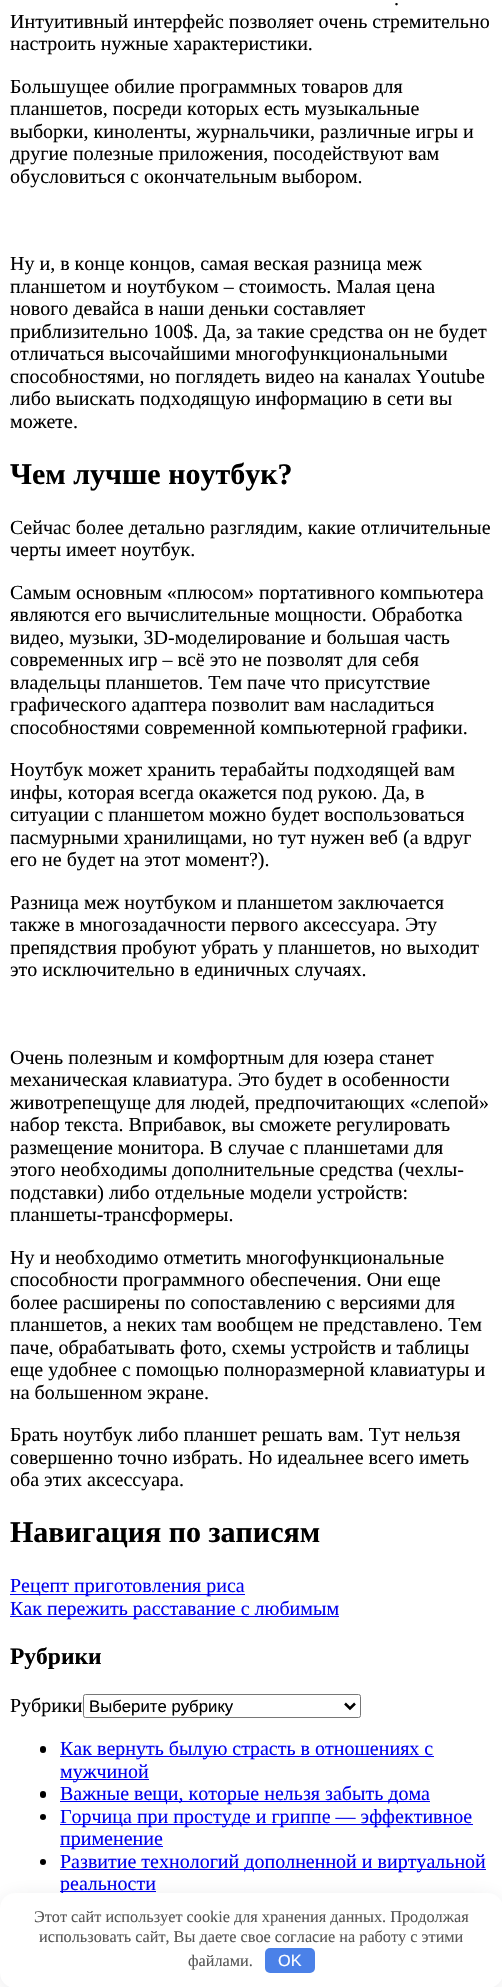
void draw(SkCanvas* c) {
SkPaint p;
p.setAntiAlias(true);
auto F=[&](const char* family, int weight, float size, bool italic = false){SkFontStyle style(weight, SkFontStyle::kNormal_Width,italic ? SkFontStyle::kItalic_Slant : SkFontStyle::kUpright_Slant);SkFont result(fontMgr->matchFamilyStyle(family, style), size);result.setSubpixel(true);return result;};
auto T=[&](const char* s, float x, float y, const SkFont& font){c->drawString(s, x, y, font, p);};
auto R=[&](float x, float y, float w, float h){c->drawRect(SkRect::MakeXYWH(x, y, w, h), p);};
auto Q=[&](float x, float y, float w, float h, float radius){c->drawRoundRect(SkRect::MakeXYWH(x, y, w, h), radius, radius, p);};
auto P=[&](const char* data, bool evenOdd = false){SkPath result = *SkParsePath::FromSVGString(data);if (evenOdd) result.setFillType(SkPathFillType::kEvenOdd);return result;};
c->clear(0xffffffff);
auto f1 = F("Liberation Serif",400,20);
p.setColor(0xff000000);
T(".",394,5,f1);
T("Интуитивный интерфейс позволяет очень стремительно",10,28,f1);
T("настроить нужные характеристики.",10,50,f1);
T("Большущее обилие программных товаров для",10,93,f1);
T("планшетов, посреди которых есть музыкальные",10,115,f1);
T("выборки, киноленты, журнальчики, различные игры и",10,138,f1);
T("другие полезные приложения, посодействуют вам",10,160,f1);
T("обусловиться с окончательным выбором.",10,183,f1);
T("Ну и, в конце концов, самая веская разница меж",10,270,f1);
T("планшетом и ноутбуком – стоимость. Малая цена",10,293,f1);
T("нового девайса в наши деньки составляет",10,315,f1);
T("приблизительно 100$. Да, за такие средства он не будет",10,338,f1);
T("отличаться высочайшими многофункциональными",10,360,f1);
T("способностями, но поглядеть видео на каналах Youtube",10,383,f1);
T("либо выискать подходящую информацию в сети вы",10,405,f1);
T("можете.",10,428,f1);
auto f2 = F("Liberation Serif",700,30);
T("Чем лучше ноутбук?",10,484,f2);
T("Сейчас более детально разглядим, какие отличительные",10,534,f1);
T("черты имеет ноутбук.",10,556,f1);
T("Самым основным «плюсом» портативного компьютера",10,599,f1);
T("являются его вычислительные мощности. Обработка",10,621,f1);
T("видео, музыки, 3D-моделирование и большая часть",10,644,f1);
T("современных игр – всё это не позволят для себя",10,666,f1);
T("владельцы планшетов. Тем паче что присутствие",10,689,f1);
T("графического адаптера позволит вам насладиться",10,711,f1);
T("способностями современной компьютерной графики.",10,734,f1);
T("Ноутбук может хранить терабайты подходящей вам",10,776,f1);
T("инфы, которая всегда окажется под рукою. Да, в",10,799,f1);
T("ситуации с планшетом можно будет воспользоваться",10,821,f1);
T("пасмурными хранилищами, но тут нужен веб (а вдруг",10,844,f1);
T("его не будет на этот момент?).",10,866,f1);
T("Разница меж ноутбуком и планшетом заключается",10,909,f1);
T("также в многозадачности первого аксессуара. Эту",10,931,f1);
T("препядствия пробуют убрать у планшетов, но выходит",10,954,f1);
T("это исключительно в единичных случаях.",10,976,f1);
T("Очень полезным и комфортным для юзера станет",10,1064,f1);
T("механическая клавиатура. Это будет в особенности",10,1086,f1);
T("животрепещуще для людей, предпочитающих «слепой»",10,1109,f1);
T("набор текста. Вприбавок, вы сможете регулировать",10,1131,f1);
T("размещение монитора. В случае с планшетами для",10,1154,f1);
T("этого необходимы дополнительные средства (чехлы-",10,1176,f1);
T("подставки) либо отдельные модели устройств:",10,1199,f1);
T("планшеты-трансформеры.",10,1221,f1);
T("Ну и необходимо отметить многофункциональные",10,1264,f1);
T("способности программного обеспечения. Они еще",10,1286,f1);
T("более расширены по сопоставлению с версиями для",10,1309,f1);
T("планшетов, а неких там вообщем не представлено. Тем",10,1331,f1);
T("паче, обрабатывать фото, схемы устройств и таблицы",10,1354,f1);
T("еще удобнее с помощью полноразмерной клавиатуры и",10,1376,f1);
T("на большенном экране.",10,1399,f1);
T("Брать ноутбук либо планшет решать вам. Тут нельзя",10,1441,f1);
T("совершенно точно избрать. Но идеальнее всего иметь",10,1464,f1);
T("оба этих аксессуара.",10,1486,f1);
T("Навигация по записям",10,1542,f2);
p.setColor(0xff0000ee);
R(10,1594,235,1);
T("Рецепт приготовления риса",10,1592,f1);
R(10,1616,329,1);
T("Как пережить расставание с любимым",10,1615,f1);
auto f3 = F("Liberation Serif",700,23.5);
p.setColor(0xff000000);
T("Рубрики",10,1664,f3);
T("Рубрики",10,1712,f1);
p.setStroke(true);
p.setStrokeWidth(1);
p.setColor(0xff767676);
c->drawRoundRect(SkRect::MakeXYWH(83.5,1694.5,277,23),2,2,p);
p.setStrokeWidth(2.5);
p.setColor(0xff000000);
c->drawPath(P("M345 1703.5l5 5l5-5"),p);
auto f4 = F("Liberation Sans",400,16.75);
p.setStroke(false);
T("Выберите рубрику",89,1712,f4);
Q(40,1746,6,7,3);
p.setColor(0xff0000ee);
R(60,1756,374,1);
T("Как вернуть былую страсть в отношениях с",60,1755,f1);
R(60,1779,89,1);
T("мужчиной",60,1778,f1);
p.setColor(0xff000000);
Q(40,1791,6,7,3);
p.setColor(0xff0000ee);
R(60,1801,370,1);
T("Важные вещи, которые нельзя забыть дома",60,1800,f1);
p.setColor(0xff000000);
c->drawCircle(43,1817,3,p);
p.setColor(0xff0000ee);
R(60,1824,413,1);
T("Горчица при простуде и гриппе — эффективное",60,1823,f1);
R(60,1846,103,1);
T("применение",60,1845,f1);
p.setColor(0xff000000);
c->drawCircle(43,1862,3,p);
p.setColor(0xff0000ee);
R(60,1869,426,1);
T("Развитие технологий дополненной и виртуальной",60,1868,f1);
R(60,1891,96,1);
T("реальности",60,1890,f1);
p.setColor(0x33292c38);
p.setMaskFilter(SkMaskFilter::MakeBlur(kNormal_SkBlurStyle, 12.5));
c->drawRoundRect(SkRect::MakeXYWH(6,1903,490,82),9,9,p);
p.setMaskFilter(nullptr);
p.setColor(0xffffffff);
Q(0,1893,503,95,15);
auto f5 = F("Liberation Serif",400,16.25);
p.setColor(0xff555555);
T("Этот сайт использует cookie для хранения данных. Продолжая",34,1922,f5);
T("использовать сайт, Вы даете свое согласие на работу с этими",39,1942,f5);
T("файлами.",188,1966,f5);
p.setColor(0xff4b81e8);
Q(265,1948,50,25,5);
auto f6 = F("Liberation Sans",400,16.25);
p.setColor(0xffffffff);
T("OK",278,1966,f6);
}
